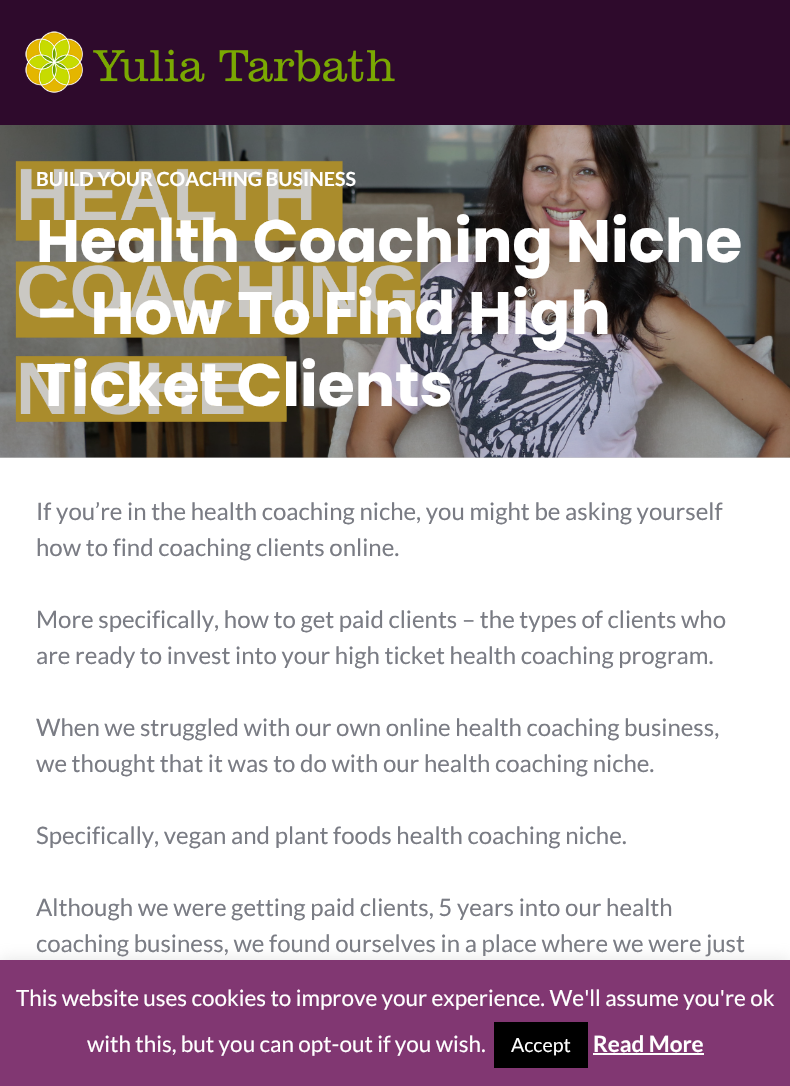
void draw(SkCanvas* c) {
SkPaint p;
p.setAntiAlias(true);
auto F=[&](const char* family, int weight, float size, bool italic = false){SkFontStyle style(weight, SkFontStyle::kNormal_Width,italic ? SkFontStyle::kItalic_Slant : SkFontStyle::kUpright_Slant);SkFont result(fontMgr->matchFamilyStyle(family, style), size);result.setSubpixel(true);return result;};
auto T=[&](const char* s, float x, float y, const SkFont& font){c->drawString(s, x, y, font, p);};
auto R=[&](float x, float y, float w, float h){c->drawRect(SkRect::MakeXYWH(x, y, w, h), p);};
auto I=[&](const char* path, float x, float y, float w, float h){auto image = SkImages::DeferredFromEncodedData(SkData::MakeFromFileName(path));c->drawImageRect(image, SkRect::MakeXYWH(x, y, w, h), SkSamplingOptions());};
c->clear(0xffffffff);
p.setColor(0xffcccccc);
R(0,457,790,1);
p.setColor(0xff2e0a2c);
R(0,0,790,125);
I("1.png",25,31,370,62);
I("2.png",0,125,790,333);
auto f1 = F("Lato",700,19.5);
p.setColor(0xffffffff);
T("BUILD YOUR COACHING BUSINESS",36,186,f1);
auto f2 = F("Poppins",700,60);
T("Health Coaching Niche",36,262,f2);
T("– How To Find High",36,334,f2);
T("Ticket Clients",36,406,f2);
auto f3 = F("Lato",400,24);
p.setColor(0xff7a7c84);
T("If you’re in the health coaching niche, you might be asking yourself",36,520,f3);
T("how to find coaching clients online.",36,556,f3);
T("More specifically, how to get paid clients – the types of clients who",36,628,f3);
T("are ready to invest into your high ticket health coaching program.",36,664,f3);
T("When we struggled with our own online health coaching business,",36,736,f3);
T("we thought that it was to do with our health coaching niche.",36,772,f3);
T("Specifically, vegan and plant foods health coaching niche.",36,844,f3);
T("Although we were getting paid clients, 5 years into our health",36,916,f3);
T("coaching business, we found ourselves in a place where we were just",36,952,f3);
p.setColor(0x4dacabab);
p.setMaskFilter(SkMaskFilter::MakeBlur(kNormal_SkBlurStyle, 7.5));
c->drawRect(SkRect::MakeXYWH(0,959,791,126),p);
p.setMaskFilter(nullptr);
p.setColor(0xff813772);
R(0,960,790,126);
auto f4 = F("Lato",400,22.5);
p.setColor(0xffffffff);
T("This website uses cookies to improve your experience. We'll assume you're ok",16,1006,f4);
T("with this, but you can opt-out if you wish.",87,1052,f4);
p.setColor(0xff000000);
R(494,1022,94,46);
auto f5 = F("Lato",400,19.5);
p.setColor(0xffffffff);
T("Accept",511,1052,f5);
auto f6 = F("Lato",700,22.5);
T("Read More",593,1052,f6);
R(593,1053,111,2);
}
